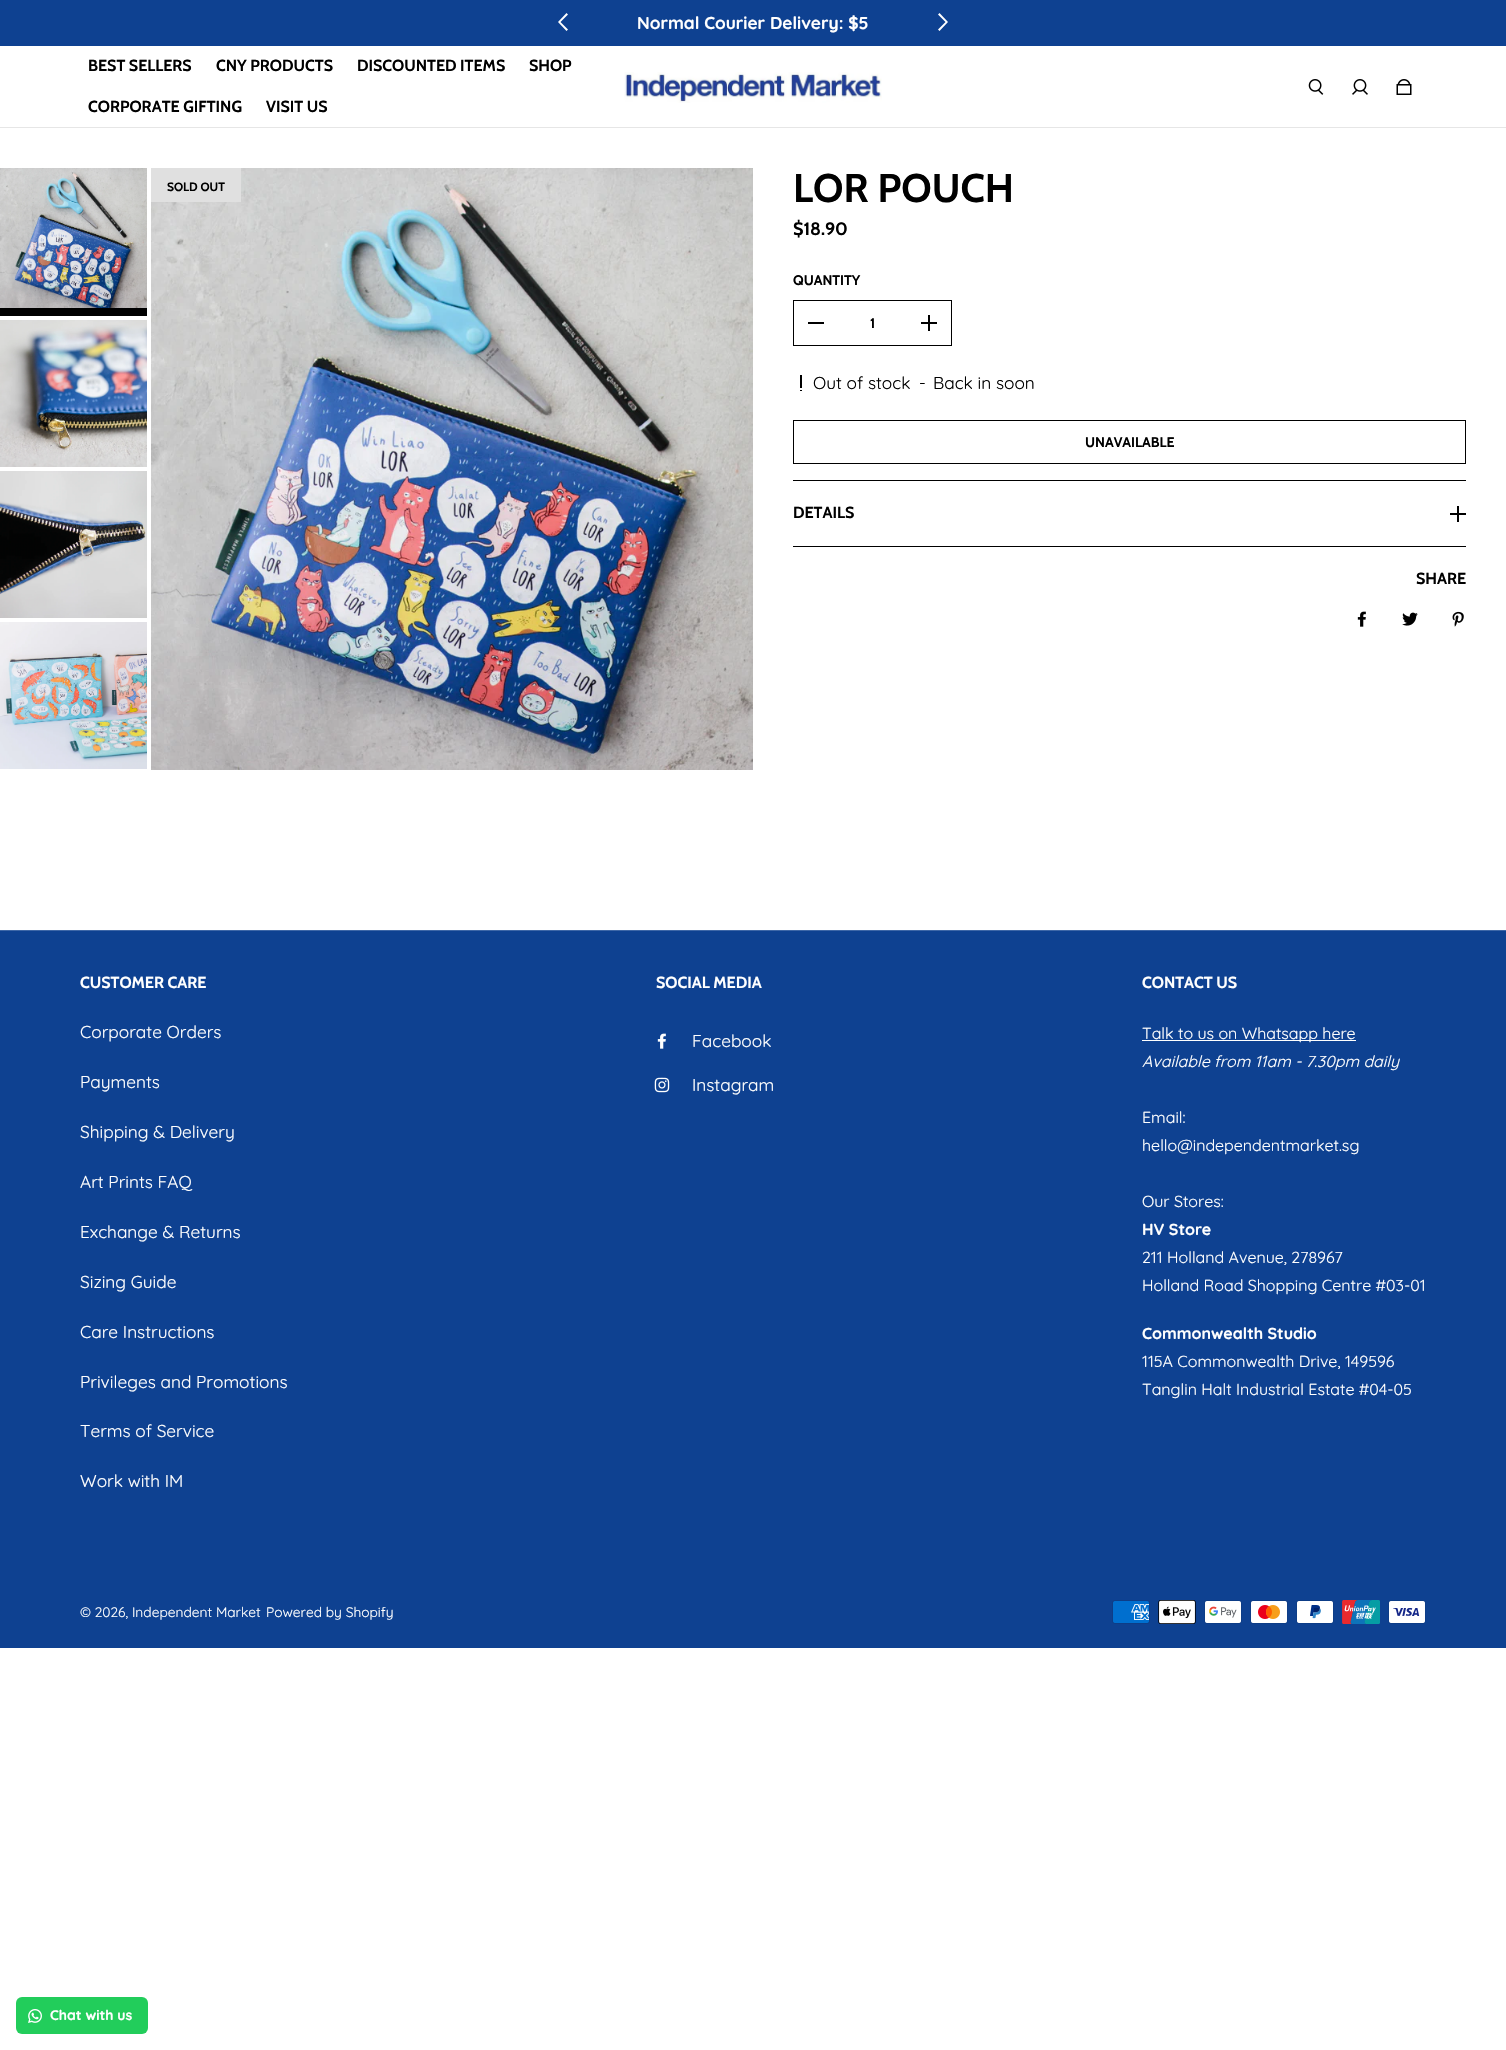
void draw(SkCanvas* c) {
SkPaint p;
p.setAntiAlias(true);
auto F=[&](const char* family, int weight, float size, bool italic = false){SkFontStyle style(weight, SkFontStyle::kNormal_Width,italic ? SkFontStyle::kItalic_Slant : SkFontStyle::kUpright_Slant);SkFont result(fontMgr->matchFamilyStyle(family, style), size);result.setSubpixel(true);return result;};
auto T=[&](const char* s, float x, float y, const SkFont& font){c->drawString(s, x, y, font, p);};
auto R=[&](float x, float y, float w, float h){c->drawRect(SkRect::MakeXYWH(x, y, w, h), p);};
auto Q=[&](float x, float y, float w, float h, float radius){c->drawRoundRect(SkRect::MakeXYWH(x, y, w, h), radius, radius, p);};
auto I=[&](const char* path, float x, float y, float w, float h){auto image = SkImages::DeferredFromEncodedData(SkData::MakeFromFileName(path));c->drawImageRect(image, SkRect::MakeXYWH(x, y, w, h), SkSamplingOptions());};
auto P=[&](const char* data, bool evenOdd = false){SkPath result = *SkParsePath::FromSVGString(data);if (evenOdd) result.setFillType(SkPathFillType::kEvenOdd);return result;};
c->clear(0xffffffff);
p.setColor(0xff0e4191);
R(0,0,1506,46);
p.setColor(0xffffffff);
c->drawPath(P("M560.5 22l7.5-7.5l-1.5-1.5l-8.5 9l8.5 9l1.5-1.5z",true),p);
auto f1 = F("Quicksand",700,17.25);
T("Normal Courier Delivery: $5",637,29,f1);
c->drawPath(P("M945.5 22l-7.5 7.5l1.5 1.5l8.5-9l-8.5-9l-1.5 1.5z",true),p);
p.setColor(0xffe6e6e6);
R(0,127,1506,1);
auto f2 = F("Cabin",700,16);
p.setColor(0xff000000);
T("BEST SELLERS",88,71,f2);
T("CNY PRODUCTS",216,71,f2);
T("DISCOUNTED ITEMS",357,71,f2);
T("SHOP",529,71,f2);
T("CORPORATE GIFTING",88,112,f2);
T("VISIT US",266,112,f2);
I("1.png",624,72,258,31);
I("2.png",1308,79,16,16);
I("3.png",1352,79,16,16);
I("4.png",1396,79,16,16);
I("5.png",0,168,147,140);
R(0,308,147,8);
I("6.png",0,320,147,147);
I("7.png",0,471,147,147);
I("8.png",0,622,147,147);
I("9.png",151,168,602,602);
p.setColor(0xffe0e0e0);
R(151,168,90,34);
auto f3 = F("Cabin",700,12);
p.setColor(0xff000000);
T("SOLD OUT",167,191,f3);
auto f4 = F("Cabin",700,40);
T("LOR POUCH",793,202,f4);
auto f5 = F("Cabin",700,18);
T("$18.90",793,235,f5);
auto f6 = F("Cabin",700,14);
T("QUANTITY",793,285,f6);
p.setStroke(true);
p.setStrokeWidth(1);
c->drawRect(SkRect::MakeXYWH(793.5,300.5,158,45),p);
p.setStroke(false);
R(808,322,16,2);
T("1",870,328,f6);
R(921,322,16,2);
R(928,315,2,16);
R(800,375,2,13);
R(800,390,2,1);
auto f7 = F("Quicksand",400,17.25);
T("Out of stock",813,389,f7);
T("-",919,389,f7);
T("Back in soon",933,389,f7);
p.setStroke(true);
c->drawRect(SkRect::MakeXYWH(793.5,420.5,672,43),p);
p.setStroke(false);
T("UNAVAILABLE",1085,447,f6);
R(793,480,673,1);
R(793,546,673,1);
T("DETAILS",793,518,f2);
R(1450,513,16,2);
R(1457,506,2,16);
T("SHARE",1416,584,f2);
I("10.png",1357,611,9,16);
I("11.png",1402,612,16,14);
I("12.png",1452,611,12,16);
p.setColor(0xff0e4191);
R(0,931,1506,717);
p.setColor(0xff3e67a7);
R(0,930,1506,1);
p.setColor(0xffffffff);
T("CUSTOMER CARE",80,988,f2);
T("Corporate Orders",80,1038,f7);
T("Payments",80,1088,f7);
T("Shipping & Delivery",80,1138,f7);
T("Art Prints FAQ",80,1188,f7);
T("Exchange & Returns",80,1238,f7);
T("Sizing Guide",80,1288,f7);
T("Care Instructions",80,1338,f7);
T("Privileges and Promotions",80,1388,f7);
T("Terms of Service",80,1437,f7);
T("Work with IM",80,1487,f7);
T("SOCIAL MEDIA",656,988,f2);
I("13.png",657,1033,9,16);
T("Facebook",692,1047,f7);
I("14.png",654,1077,16,16);
T("Instagram",692,1091,f7);
T("CONTACT US",1142,988,f2);
R(1142,1040,214,1);
auto f8 = F("Quicksand",400,16);
T("Talk to us on Whatsapp here",1142,1039,f8);
auto f9 = F("Quicksand",400,16,true);
T("Available from 11am - 7.30pm daily",1142,1067,f9);
T("Email:",1142,1123,f8);
T("hello@independentmarket.sg",1142,1151,f8);
T("Our Stores:",1142,1207,f8);
auto f10 = F("Quicksand",700,16);
T("HV Store",1142,1235,f10);
T("211 Holland Avenue, 278967",1142,1263,f8);
T("Holland Road Shopping Centre #03-01",1142,1291,f8);
T("Commonwealth Studio",1142,1339,f10);
T("115A Commonwealth Drive, 149596",1142,1367,f8);
T("Tanglin Halt Industrial Estate #04-05",1142,1395,f8);
auto f11 = F("Quicksand",400,13.75);
T("© 2026, Independent Market",80,1617,f11);
T("Powered by Shopify",266,1617,f11);
I("15.png",1112,1600,38,24);
I("16.png",1158,1600,38,24);
I("17.png",1204,1600,38,24);
I("18.png",1250,1600,38,24);
I("19.png",1296,1600,38,24);
I("20.png",1342,1600,38,24);
I("21.png",1388,1600,38,24);
p.setColor(0xff22cd5b);
Q(16,1997,132,37,6);
I("22.png",28,2009,14,14);
auto f12 = F("Quicksand",700,14);
p.setColor(0xffffffff);
T("Chat with us",50,2020,f12);
}
